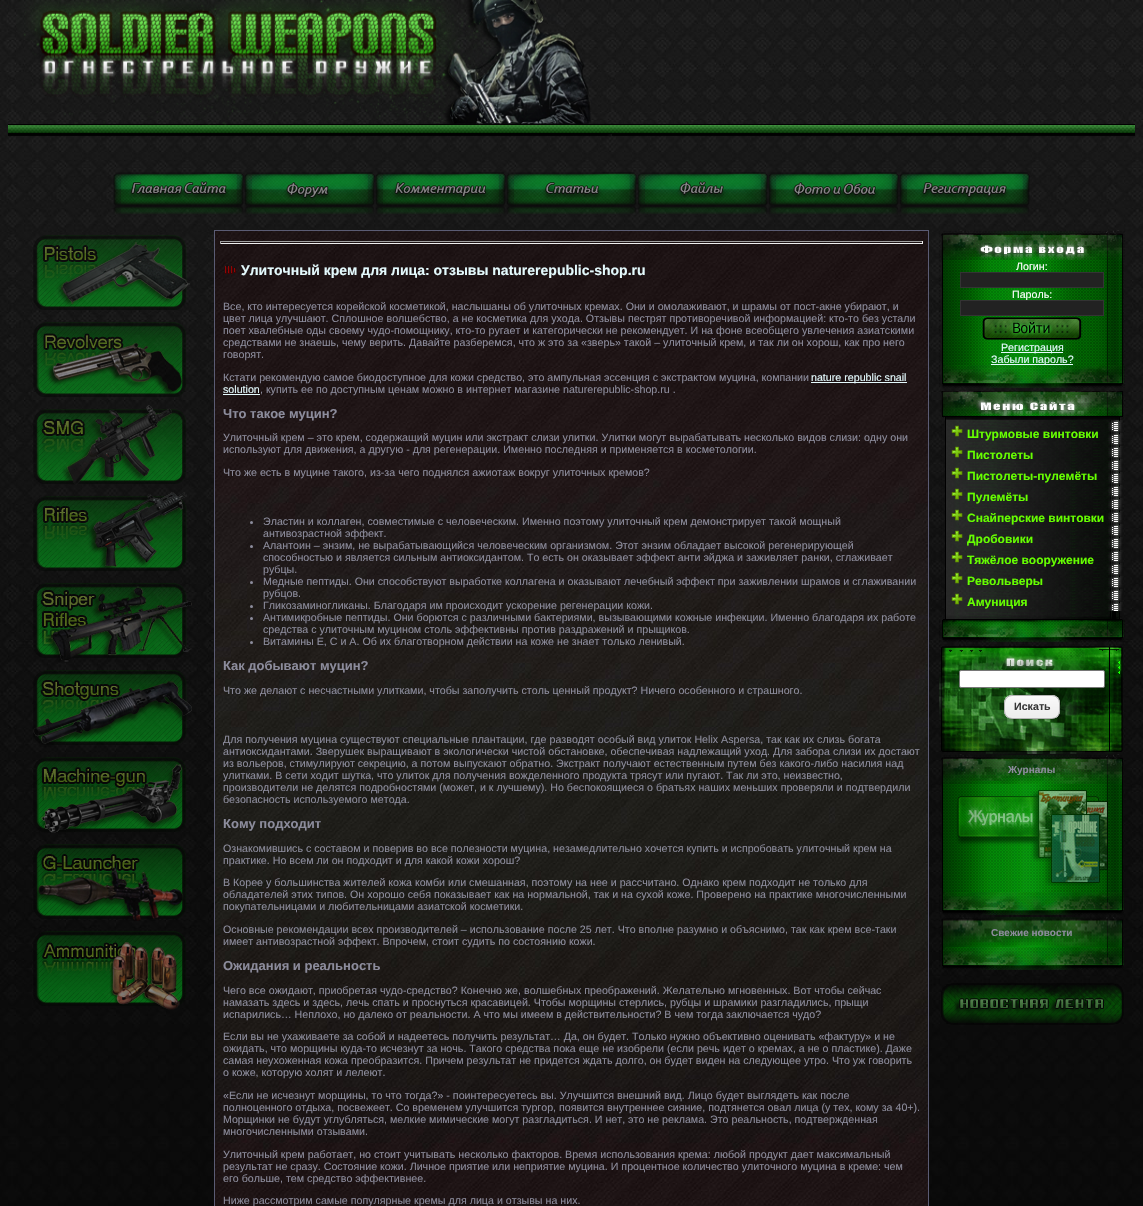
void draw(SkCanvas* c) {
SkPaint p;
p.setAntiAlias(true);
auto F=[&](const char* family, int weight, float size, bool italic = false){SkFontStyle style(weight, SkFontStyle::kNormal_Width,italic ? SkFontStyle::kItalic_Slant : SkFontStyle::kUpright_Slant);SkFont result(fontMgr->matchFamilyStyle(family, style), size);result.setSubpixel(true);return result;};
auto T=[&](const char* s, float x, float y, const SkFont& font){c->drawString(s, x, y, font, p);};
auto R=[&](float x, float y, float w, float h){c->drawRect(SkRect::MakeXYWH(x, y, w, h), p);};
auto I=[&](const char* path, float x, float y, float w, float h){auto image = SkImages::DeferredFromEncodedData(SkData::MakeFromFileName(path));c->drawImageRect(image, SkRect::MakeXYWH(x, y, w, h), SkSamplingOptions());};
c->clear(0xffffffff);
I("1.png",0,0,1143,1206);
I("2.png",8,124,1127,12);
I("3.png",9,0,633,133);
I("4.png",113,172,131,42);
I("5.png",244,172,131,42);
I("6.png",375,172,131,42);
I("7.png",506,172,131,42);
I("8.png",637,172,131,42);
I("9.png",768,172,131,42);
I("10.png",899,172,131,42);
I("11.png",33,235,157,75);
I("12.png",33,322,153,75);
I("13.png",33,405,153,80);
I("14.png",33,492,154,79);
I("15.png",33,583,159,80);
I("16.png",33,670,159,77);
I("17.png",33,757,153,76);
I("18.png",33,844,153,77);
I("19.png",33,931,153,79);
p.setStroke(true);
p.setStrokeWidth(1);
p.setColor(0xff5b5c74);
c->drawRect(SkRect::MakeXYWH(214.5,230.5,714,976),p);
I("20.png",215,231,713,975);
p.setStroke(false);
p.setColor(0xff9f9f9f);
R(220,241,703,1);
p.setColor(0xffeeeeee);
R(922,241,1,3);
R(220,243,703,1);
p.setColor(0xff9f9f9f);
R(220,241,1,3);
I("21.png",225,266,11,8);
auto f1 = F("Liberation Sans",700,14);
p.setColor(0xffe4fafd);
T("Улиточный крем для лица: отзывы naturerepublic-shop.ru",241,275,f1);
auto f2 = F("Liberation Sans",400,10.67);
p.setColor(0xff8c8c9c);
T("Все, кто интересуется корейской косметикой, наслышаны об улиточных кремах. Они и омолаживают, и шрамы от пост-акне убирают, и",223,310,f2);
T("цвет лица улучшают. Сплошное волшебство, а не косметика для ухода. Отзывы пестрят противоречивой информацией: кто-то без устали",223,322,f2);
T("поет хвалебные оды своему чудо-помощнику, кто-то ругает и категорически не рекомендует. И на фоне всеобщего увлечения азиатскими",223,334,f2);
T("средствами не знаешь, чему верить. Давайте разберемся, что ж это за «зверь» такой – улиточный крем, и так ли он хорош, как про него",223,346,f2);
T("говорят.",223,358,f2);
T("Кстати рекомендую самое биодоступное для кожи средство, это ампульная эссенция с экстрактом муцина, компании",223,381,f2);
p.setColor(0xffe4fafd);
R(811,382,96,1);
T("nature republic snail",811,381,f2);
T("solution",223,393,f2);
R(223,394,37,1);
p.setColor(0xff8c8c9c);
T(", купить ее по доступным ценам можно в интернет магазине naturerepublic-shop.ru .",260,393,f2);
auto f3 = F("Liberation Sans",700,13);
T("Что такое муцин?",223,418,f3);
T("Улиточный крем – это крем, содержащий муцин или экстракт слизи улитки. Улитки могут вырабатывать несколько видов слизи: одну они",223,441,f2);
T("используют для движения, а другую - для регенерации. Именно последняя и применяется в косметологии.",223,453,f2);
T("Что же есть в муцине такого, из-за чего поднялся ажиотаж вокруг улиточных кремов?",223,476,f2);
c->drawCircle(251.5,522.5,1.5,p);
T("Эластин и коллаген, совместимые с человеческим. Именно поэтому улиточный крем демонстрирует такой мощный",263,525,f2);
T("антивозрастной эффект.",263,537,f2);
c->drawCircle(251.5,546.5,1.5,p);
T("Алантоин – энзим, не вырабатывающийся человеческим организмом. Этот энзим обладает высокой регенерирующей",263,549,f2);
T("способностью и является сильным антиоксидантом. То есть он оказывает эффект анти эйджа и заживляет ранки, сглаживает",263,561,f2);
T("рубцы.",263,573,f2);
c->drawCircle(251.5,582.5,1.5,p);
T("Медные пептиды. Они способствуют выработке коллагена и оказывают лечебный эффект при заживлении шрамов и сглаживании",263,585,f2);
T("рубцов.",263,597,f2);
c->drawCircle(251.5,606.5,1.5,p);
T("Гликозаминогликаны. Благодаря им происходит ускорение регенерации кожи.",263,609,f2);
c->drawCircle(251.5,618.5,1.5,p);
T("Антимикробные пептиды. Они борются с различными бактериями, вызывающими кожные инфекции. Именно благодаря их работе",263,621,f2);
T("средства с улиточным муцином столь эффективны против раздражений и прыщиков.",263,633,f2);
c->drawCircle(251.5,642.5,1.5,p);
T("Витамины Е, С и А. Об их благотворном действии на коже не знает только ленивый.",263,645,f2);
T("Как добывают муцин?",223,670,f3);
T("Что же делают с несчастными улитками, чтобы заполучить столь ценный продукт? Ничего особенного и страшного.",223,694,f2);
T("Для получения муцина существуют специальные плантации, где разводят особый вид улиток Helix Aspersa, так как их слизь богата",223,743,f2);
T("антиоксидантами. Зверушек выращивают в экологически чистой обстановке, обеспечивая надлежащий уход. Для забора слизи их достают",223,755,f2);
T("из вольеров, стимулируют секрецию, а потом выпускают обратно. Экстракт получают естественным путем без какого-либо насилия над",223,767,f2);
T("улитками. В сети ходит шутка, что улиток для получения вожделенного продукта трясут или пугают. Так ли это, неизвестно,",223,779,f2);
T("производители не делятся подробностями (может, и к лучшему). Но беспокоящиеся о братьях наших меньших проверяли и подтвердили",223,791,f2);
T("безопасность используемого метода.",223,803,f2);
T("Кому подходит",223,828,f3);
T("Ознакомившись с составом и поверив во все полезности муцина, незамедлительно хочется купить и испробовать улиточный крем на",223,852,f2);
T("практике. Но всем ли он подходит и для какой кожи хорош?",223,864,f2);
T("В Корее у большинства жителей кожа комби или смешанная, поэтому на нее и рассчитано. Однако крем подходит не только для",223,886,f2);
T("обладателей этих типов. Он хорошо себя показывает как на нормальной, так и на сухой коже. Проверено на практике многочисленными",223,898,f2);
T("покупательницами и любительницами азиатской косметики.",223,910,f2);
T("Основные рекомендации всех производителей – использование после 25 лет. Что вполне разумно и объяснимо, так как крем все-таки",223,933,f2);
T("имеет антивозрастной эффект. Впрочем, стоит судить по состоянию кожи.",223,945,f2);
T("Ожидания и реальность",223,970,f3);
T("Чего все ожидают, приобретая чудо-средство? Конечно же, волшебных преображений. Желательно мгновенных. Вот чтобы сейчас",223,994,f2);
T("намазать здесь и здесь, лечь спать и проснуться красавицей. Чтобы морщины стерлись, рубцы и шрамики разгладились, прыщи",223,1006,f2);
T("испарились… Неплохо, но далеко от реальности. А что мы имеем в действительности? В чем тогда заключается чудо?",223,1018,f2);
T("Если вы не ухаживаете за собой и надеетесь получить результат… Да, он будет. Только нужно объективно оценивать «фактуру» и не",223,1040,f2);
T("ожидать, что морщины куда-то исчезнут за ночь. Такого средства пока еще не изобрели (если речь идет о кремах, а не о пластике). Даже",223,1052,f2);
T("самая неухоженная кожа преобразится. Причем результат не придется ждать долго, он будет виден на следующее утро. Что уж говорить",223,1064,f2);
T("о коже, которую холят и лелеют.",223,1076,f2);
T("«Если не исчезнут морщины, то что тогда?» - поинтересуетесь вы. Улучшится внешний вид. Лицо будет выглядеть как после",223,1099,f2);
T("полноценного отдыха, посвежеет. Со временем улучшится тургор, появится внутреннее сияние, подтянется овал лица (у тех, кому за 40+).",223,1111,f2);
T("Морщинки не будут углубляться, мелкие мимические могут разгладиться. И нет, это не реклама. Это реальность, подтвержденная",223,1123,f2);
T("многочисленными отзывами.",223,1135,f2);
T("Улиточный крем работает, но стоит учитывать несколько факторов. Время использования крема: любой продукт дает максимальный",223,1158,f2);
T("результат не сразу. Состояние кожи. Личное приятие или неприятие муцина. И процентное количество улиточного муцина в креме: чем",223,1170,f2);
T("его больше, тем средство эффективнее.",223,1182,f2);
T("Ниже рассмотрим самые популярные кремы для лица и отзывы на них.",223,1204,f2);
I("22.png",939,230,186,30);
I("23.png",939,260,185,105);
p.setColor(0xffffffff);
T("Логин:",1016,270,f2);
p.setColor(0xff222222);
c->drawRect(SkRect::MakeXYWH(960.5,272.5,143,15),p);
p.setStroke(true);
p.setColor(0xff333333);
c->drawRect(SkRect::MakeXYWH(960.5,272.5,143,15),p);
p.setStroke(false);
p.setColor(0xffffffff);
T("Пароль:",1012,298,f2);
p.setColor(0xff222222);
c->drawRect(SkRect::MakeXYWH(960.5,300.5,143,15),p);
p.setStroke(true);
p.setColor(0xff333333);
c->drawRect(SkRect::MakeXYWH(960.5,300.5,143,15),p);
I("24.png",982,317,100,23);
p.setStroke(false);
p.setColor(0xffe4fafd);
R(1001,352,62,1);
T("Регистрация",1001,351,f2);
R(991,364,82,1);
T("Забыли пароль?",991,363,f2);
I("25.png",939,365,186,23);
I("26.png",941,391,183,29);
I("27.png",941,420,182,191);
I("28.png",951,425,12,12);
auto f4 = F("Liberation Sans",700,12);
p.setColor(0xff66ff00);
T("Штурмовые винтовки",967,438,f4);
I("29.png",951,446,12,12);
T("Пистолеты",967,459,f4);
I("30.png",951,467,12,12);
T("Пистолеты-пулемёты",967,480,f4);
I("31.png",951,488,12,12);
T("Пулемёты",967,501,f4);
I("32.png",951,509,12,12);
T("Снайперские винтовки",967,522,f4);
I("33.png",951,530,12,12);
T("Дробовики",967,543,f4);
I("34.png",951,551,12,12);
T("Тяжёлое вооружение",967,564,f4);
I("35.png",951,572,12,12);
T("Револьверы",967,585,f4);
I("36.png",951,593,12,12);
T("Амуниция",967,606,f4);
I("37.png",939,611,186,31);
I("38.png",939,645,184,109);
p.setColor(0xffffffff);
c->drawRoundRect(SkRect::MakeXYWH(959.5,670.5,145,17),1.5,1.5,p);
p.setStroke(true);
p.setColor(0xff767676);
c->drawRoundRect(SkRect::MakeXYWH(959.5,670.5,145,17),1.5,1.5,p);
p.setStroke(false);
p.setColor(0xff000000);
p.setMaskFilter(SkMaskFilter::MakeBlur(kNormal_SkBlurStyle, 2));
c->drawRoundRect(SkRect::MakeXYWH(1007,699,50,18),5,5,p);
p.setMaskFilter(nullptr);
I("39.png",1004,695,56,23);
p.setStroke(true);
p.setColor(0xffb3b3b3);
c->drawRoundRect(SkRect::MakeXYWH(1004.5,695.5,55,23),7.5,7.5,p);
auto f5 = F("Liberation Sans",700,10.67);
p.setStroke(false);
p.setColor(0xff383838);
T("Искать",1014,710,f5);
I("40.png",941,754,182,30);
auto f6 = F("Liberation Sans",700,10);
p.setColor(0xff8c8c9c);
T("Журналы",1008,773,f6);
I("41.png",942,784,181,108);
I("42.png",956,790,152,96);
I("43.png",939,892,185,23);
I("44.png",941,917,182,30);
T("Свежие новости",991,936,f6);
I("45.png",939,947,185,23);
I("46.png",941,983,183,42);
}
